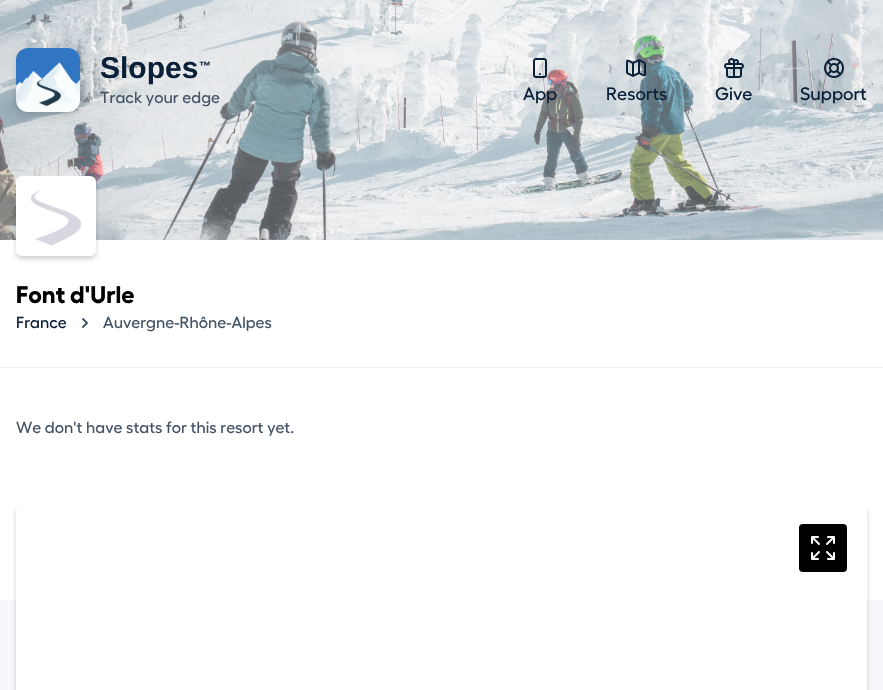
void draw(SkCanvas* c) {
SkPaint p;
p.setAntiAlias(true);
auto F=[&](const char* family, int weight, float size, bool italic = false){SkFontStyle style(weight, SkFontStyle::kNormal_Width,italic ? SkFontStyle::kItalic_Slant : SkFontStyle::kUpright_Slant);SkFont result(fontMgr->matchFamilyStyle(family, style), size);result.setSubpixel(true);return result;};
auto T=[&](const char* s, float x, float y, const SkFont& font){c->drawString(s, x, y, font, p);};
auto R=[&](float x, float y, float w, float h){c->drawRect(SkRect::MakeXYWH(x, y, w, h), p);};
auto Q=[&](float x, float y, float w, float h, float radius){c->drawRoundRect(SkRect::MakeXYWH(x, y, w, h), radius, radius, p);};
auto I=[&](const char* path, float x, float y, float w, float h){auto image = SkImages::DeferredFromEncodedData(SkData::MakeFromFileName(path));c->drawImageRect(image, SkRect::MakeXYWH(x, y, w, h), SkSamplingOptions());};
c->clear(0xffffffff);
I("1.png",0,0,883,240);
p.setColor(0x1a000000);
p.setMaskFilter(SkMaskFilter::MakeBlur(kNormal_SkBlurStyle, 4));
c->drawRoundRect(SkRect::MakeXYWH(16,53,64,64),12,12,p);
p.setMaskFilter(nullptr);
p.setColor(0x0d000000);
p.setMaskFilter(SkMaskFilter::MakeBlur(kNormal_SkBlurStyle, 2.5));
c->drawRoundRect(SkRect::MakeXYWH(16,49,64,64),12,12,p);
p.setMaskFilter(nullptr);
I("2.png",16,48,64,64);
auto f1 = F("Liberation Sans",700,30);
p.setColor(0xff0b2039);
T("Slopes",100,78,f1);
auto f2 = F("Liberation Sans",700,12);
T("™",199,70,f2);
auto f3 = F("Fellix",500,16);
p.setColor(0xff445466);
T("Track your edge",100,103,f3);
I("3.png",533,58,14,20);
auto f4 = F("Fellix",500,18);
p.setColor(0xff0b2039);
T("App",523,100,f4);
I("4.png",626,59,20,18);
T("Resorts",606,100,f4);
I("5.png",724,58,20,20);
T("Give",715,100,f4);
I("6.png",824,58,20,20);
T("Support",800,100,f4);
p.setColor(0x3307182c);
p.setMaskFilter(SkMaskFilter::MakeBlur(kNormal_SkBlurStyle, 2.5));
c->drawRoundRect(SkRect::MakeXYWH(16,179,80,80),6,6,p);
p.setMaskFilter(nullptr);
p.setColor(0xffffffff);
Q(16,176,80,80,6);
I("7.png",30,189,52,57);
auto f5 = F("Fellix",700,24);
p.setColor(0xff000000);
T("Font d'Urle",16,303,f5);
p.setColor(0xff0b2039);
T("France",16,328,f3);
I("8.png",82,318,6,10);
p.setColor(0xff445466);
T("Auvergne-Rhône-Alpes",103,328,f3);
p.setColor(0xffeceef0);
R(0,367,883,1);
p.setColor(0xff445466);
T("We don't have stats for this resort yet.",16,433,f3);
p.setColor(0xfff6f7fa);
R(0,600,883,90);
p.setColor(0x3307182c);
p.setMaskFilter(SkMaskFilter::MakeBlur(kNormal_SkBlurStyle, 2.5));
c->drawRoundRect(SkRect::MakeXYWH(16,507,851,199),8,8,p);
p.setMaskFilter(nullptr);
p.setColor(0xffffffff);
Q(16,504,851,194,8);
p.setColor(0xff000000);
Q(799,524,48,48,4);
I("9.png",811,536,24,24);
}
